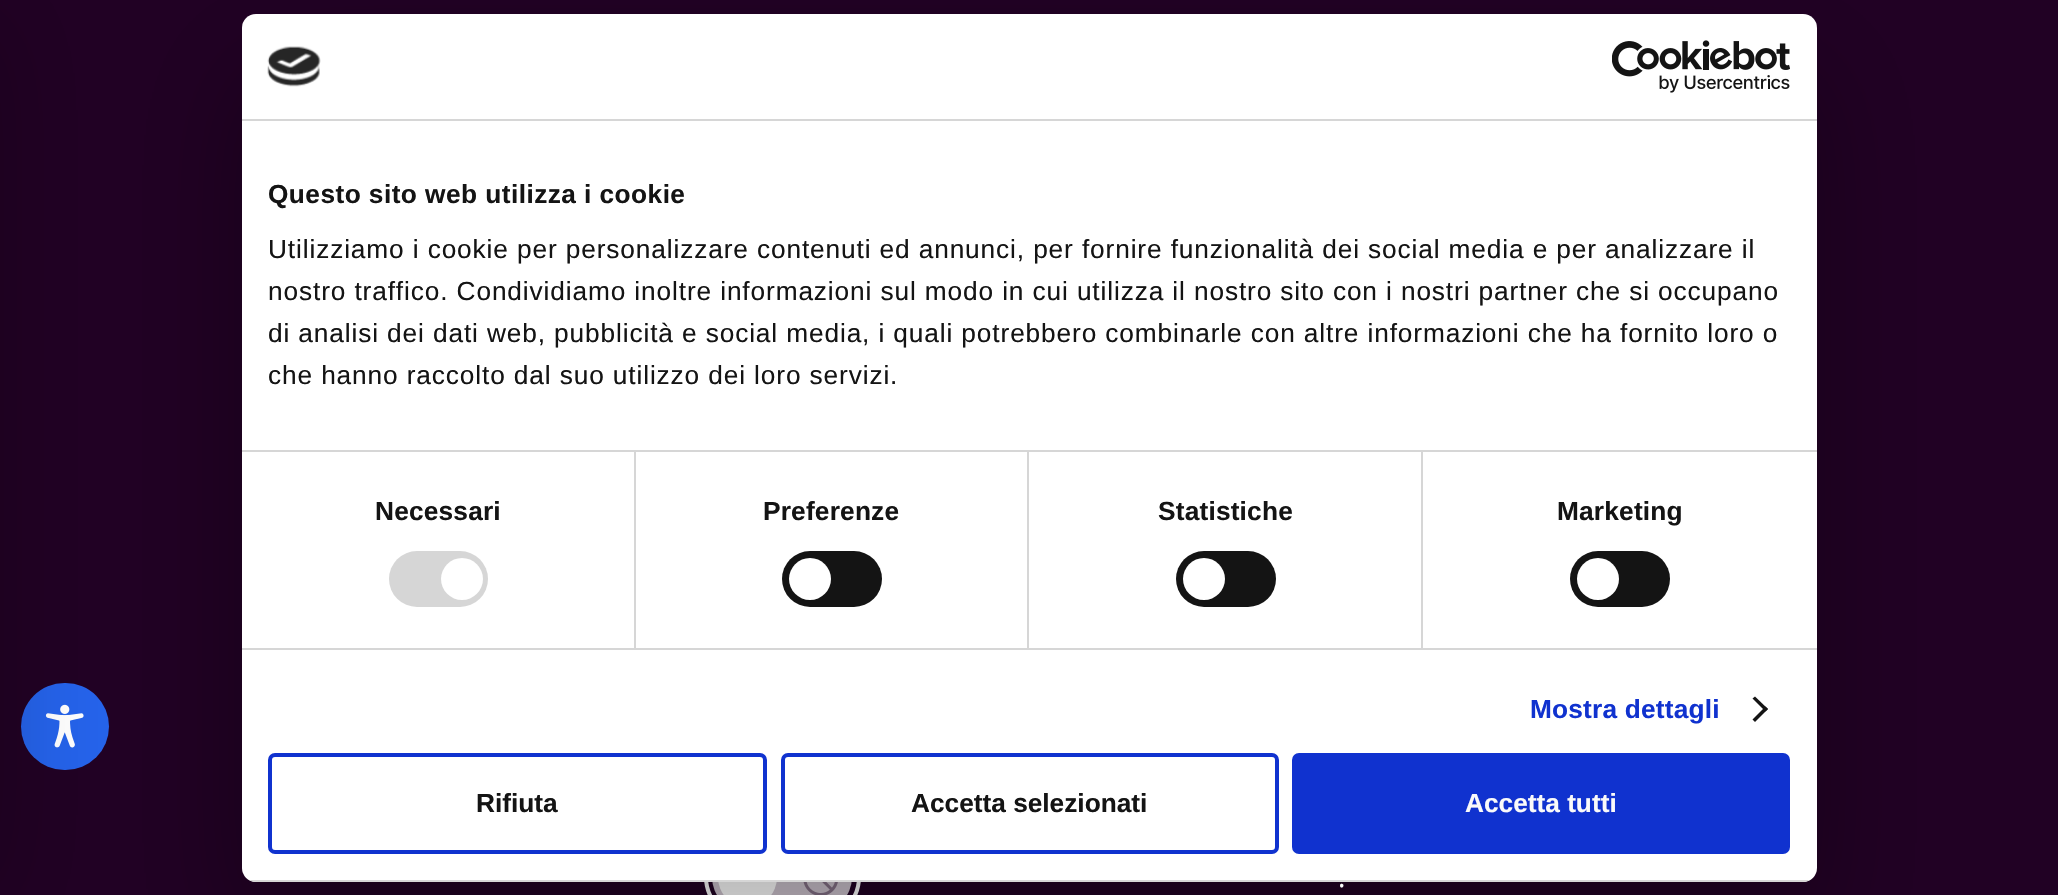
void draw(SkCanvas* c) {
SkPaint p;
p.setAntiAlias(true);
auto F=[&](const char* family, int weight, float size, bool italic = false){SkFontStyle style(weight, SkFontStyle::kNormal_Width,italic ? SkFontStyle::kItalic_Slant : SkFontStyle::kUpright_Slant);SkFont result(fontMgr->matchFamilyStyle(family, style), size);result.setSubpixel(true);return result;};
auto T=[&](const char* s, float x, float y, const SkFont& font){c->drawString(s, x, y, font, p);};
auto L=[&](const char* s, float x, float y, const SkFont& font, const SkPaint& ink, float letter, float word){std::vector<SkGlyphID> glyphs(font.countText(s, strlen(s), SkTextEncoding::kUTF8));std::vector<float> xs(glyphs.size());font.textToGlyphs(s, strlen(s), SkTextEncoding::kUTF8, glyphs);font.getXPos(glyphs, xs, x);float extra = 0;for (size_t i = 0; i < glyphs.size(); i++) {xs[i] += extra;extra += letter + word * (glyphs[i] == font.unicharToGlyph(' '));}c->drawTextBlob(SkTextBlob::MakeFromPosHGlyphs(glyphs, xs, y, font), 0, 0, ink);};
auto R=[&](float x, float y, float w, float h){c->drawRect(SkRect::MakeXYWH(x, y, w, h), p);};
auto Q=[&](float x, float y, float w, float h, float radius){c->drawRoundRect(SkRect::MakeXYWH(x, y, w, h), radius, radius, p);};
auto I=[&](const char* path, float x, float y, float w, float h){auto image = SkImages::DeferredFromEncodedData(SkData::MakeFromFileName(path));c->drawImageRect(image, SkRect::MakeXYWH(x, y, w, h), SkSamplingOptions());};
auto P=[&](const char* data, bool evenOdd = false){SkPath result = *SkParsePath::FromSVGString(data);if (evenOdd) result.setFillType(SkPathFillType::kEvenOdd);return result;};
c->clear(0xff210124);
p.setStroke(true);
p.setStrokeWidth(4);
p.setColor(0xffffffff);
c->drawRoundRect(SkRect::MakeXYWH(706,835,153,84),42,42,p);
p.setStroke(false);
p.setColor(0xffcec4cf);
Q(712,842,140,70,35);
p.setColor(0xffffffff);
Q(718,847,59,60,29.5);
I("4.png",803,882,35,13);
p.setColor(0x4d000000);
p.setMaskFilter(SkMaskFilter::MakeBlur(kNormal_SkBlurStyle, 59.5));
c->drawRoundRect(SkRect::MakeXYWH(242,70,1575,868),14,14,p);
p.setMaskFilter(nullptr);
p.setColor(0xff2563eb);
Q(21,683,88,87,43.5);
I("3.png",45,704,39,44);
p.setColor(0x33000000);
p.setMaskFilter(SkMaskFilter::MakeBlur(kNormal_SkBlurStyle, 52.5));
c->drawRect(SkRect::MakeXYWH(-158,18,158,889),p);
p.setMaskFilter(nullptr);
p.setColor(0xffffffff);
Q(242,14,1575,868,14);
p.setColor(0xffd6d6d6);
R(242,119,1575,2);
I("1.png",267,46,54,41);
I("2.png",1612,40,178,53);
R(242,450,1575,2);
auto f1 = F("Liberation Sans",700,26.25);
p.setColor(0xff141414);
L("Questo sito web utilizza i cookie",268,203,f1,p,.45,0);
auto f2 = F("Liberation Sans",400,26.25);
L("Utilizziamo i cookie per personalizzare contenuti ed annunci, per fornire funzionalità dei social media e per analizzare il",268,258,f2,p,.88,0);
L("nostro traffico. Condividiamo inoltre informazioni sul modo in cui utilizza il nostro sito con i nostri partner che si occupano",268,300,f2,p,.88,0);
L("di analisi dei dati web, pubblicità e social media, i quali potrebbero combinarle con altre informazioni che ha fornito loro o",268,342,f2,p,.88,0);
L("che hanno raccolto dal suo utilizzo dei loro servizi.",268,384,f2,p,.88,0);
p.setColor(0xffd6d6d6);
R(242,648,1575,2);
R(634,452,2,196);
p.setColor(0xff141414);
L("Necessari",375,520,f1,p,.2,0);
p.setColor(0xffd6d6d6);
Q(389,551,99,56,28);
p.setColor(0xffffffff);
c->drawCircle(462,579,21,p);
p.setColor(0xffd6d6d6);
R(1027,452,2,196);
p.setColor(0xff141414);
L("Preferenze",763,520,f1,p,.2,0);
Q(782,551,100,56,28);
p.setColor(0xffffffff);
c->drawCircle(810,579,21,p);
p.setColor(0xffd6d6d6);
R(1421,452,2,196);
p.setColor(0xff141414);
L("Statistiche",1158,520,f1,p,.2,0);
Q(1176,551,100,56,28);
p.setColor(0xffffffff);
c->drawCircle(1204,579,21,p);
p.setColor(0xff141414);
L("Marketing",1557,520,f1,p,.2,0);
Q(1570,551,100,56,28);
p.setColor(0xffffffff);
c->drawCircle(1598,579,21,p);
p.setColor(0xff1032cf);
L("Mostra dettagli",1530,718,f1,p,.2,0);
p.setColor(0xff141414);
c->drawPath(P("M1755 696.5l13 12.5l-2.5 2.5l-13-13z"),p);
c->drawPath(P("M1765.5 706.5l2.5 2.5l-13 13l-2.5-2.5z"),p);
c->save();
c->clipPath(P("M256 14h1547c7.5 0 14 6.5 14 14v840c0 7.5-6.5 14-14 14h-1547c-7.5 0-14-6.5-14-14v-840c0-7.5 6.5-14 14-14z"),true);
p.setColor(0xffd6d6d6);
R(242,880,1575,2);
c->restore();
p.setStroke(true);
p.setColor(0xff1032cf);
c->drawRoundRect(SkRect::MakeXYWH(270,755,495,97),5,5,p);
p.setStroke(false);
p.setColor(0xff141414);
T("Rifiuta",476,812,f1);
p.setStroke(true);
p.setColor(0xff1032cf);
c->drawRoundRect(SkRect::MakeXYWH(783,755,494,97),5,5,p);
p.setStroke(false);
p.setColor(0xff141414);
T("Accetta selezionati",911,812,f1);
p.setColor(0xff1032cf);
c->drawRoundRect(SkRect::MakeXYWH(1294,755,494,97),5,5,p);
p.setStroke(true);
c->drawRoundRect(SkRect::MakeXYWH(1294,755,494,97),5,5,p);
p.setStroke(false);
p.setColor(0xfffafafa);
T("Accetta tutti",1465,812,f1);
auto f3 = F("Open Sans",400,28);
T(".",1338,887,f3);
}
